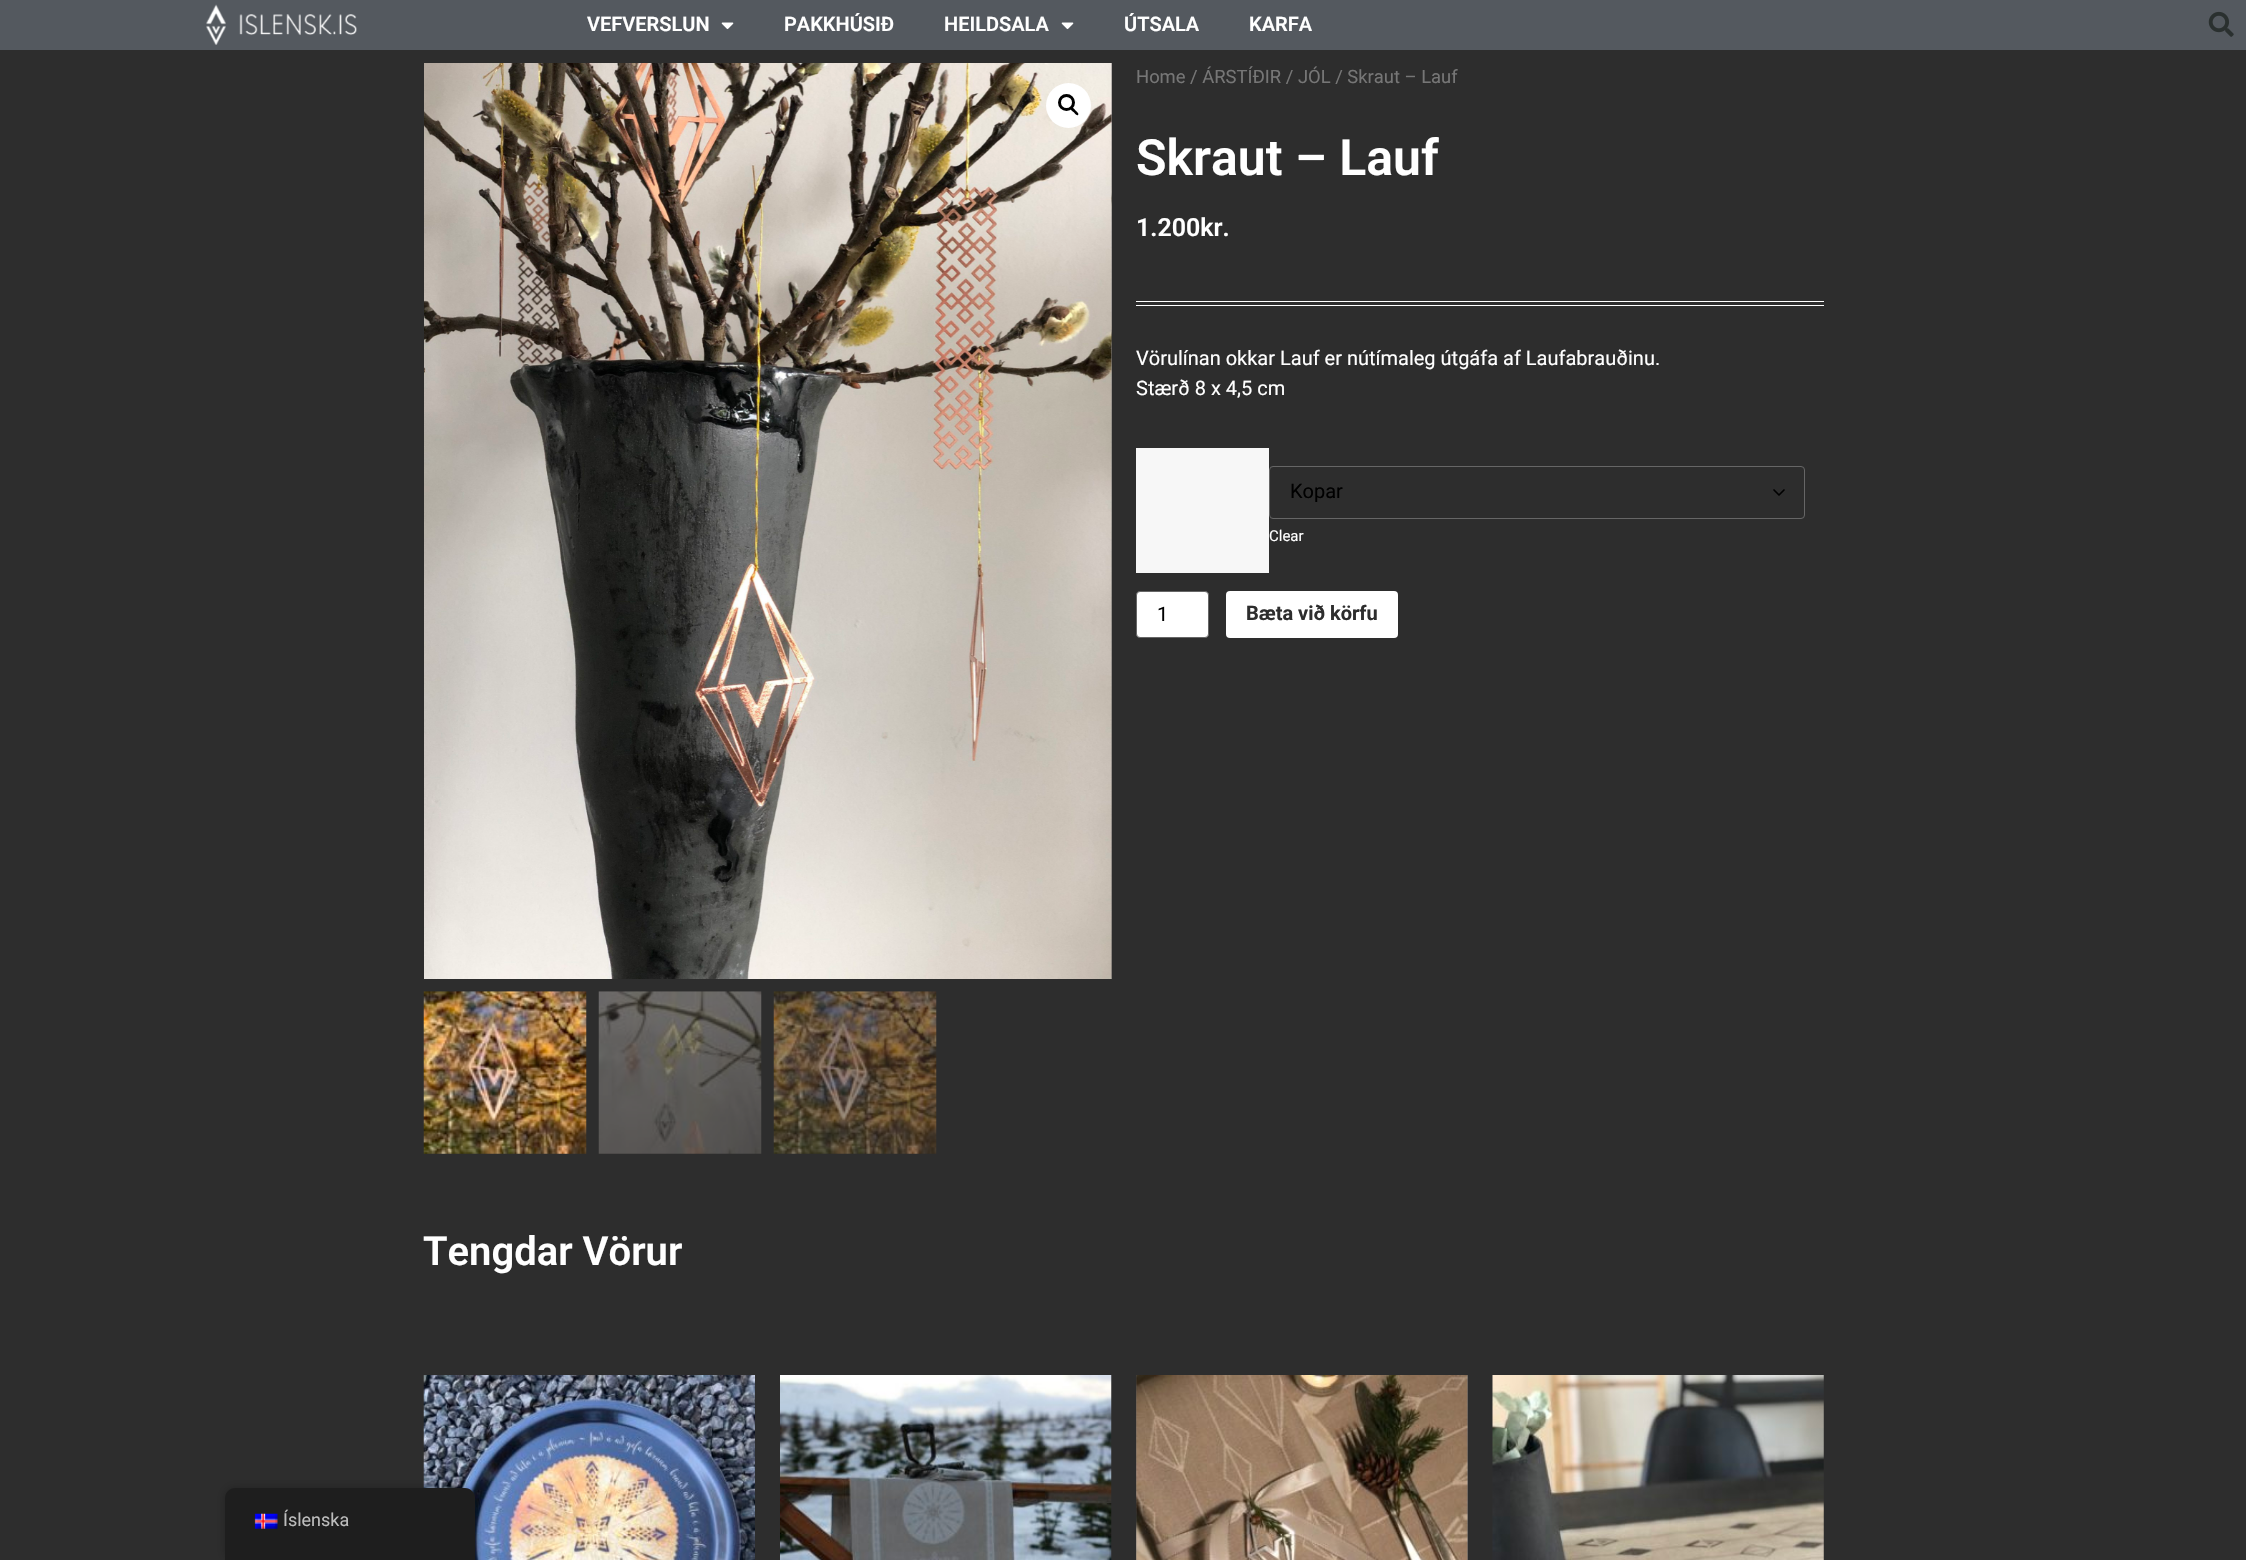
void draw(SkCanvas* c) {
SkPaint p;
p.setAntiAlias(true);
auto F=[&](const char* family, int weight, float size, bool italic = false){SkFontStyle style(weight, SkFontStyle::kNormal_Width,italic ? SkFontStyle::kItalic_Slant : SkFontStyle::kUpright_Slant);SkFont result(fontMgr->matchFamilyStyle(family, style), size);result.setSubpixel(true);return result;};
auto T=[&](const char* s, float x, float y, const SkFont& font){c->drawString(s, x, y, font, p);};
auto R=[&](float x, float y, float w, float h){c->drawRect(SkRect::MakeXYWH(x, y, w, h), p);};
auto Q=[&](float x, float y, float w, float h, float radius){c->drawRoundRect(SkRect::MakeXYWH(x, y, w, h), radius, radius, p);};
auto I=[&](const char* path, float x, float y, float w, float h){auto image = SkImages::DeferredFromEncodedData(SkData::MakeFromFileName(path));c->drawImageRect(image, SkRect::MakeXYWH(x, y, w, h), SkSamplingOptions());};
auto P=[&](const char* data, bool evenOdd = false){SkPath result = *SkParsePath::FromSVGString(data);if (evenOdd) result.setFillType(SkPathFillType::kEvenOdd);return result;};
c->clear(0xff2d2d2d);
p.setColor(0xff54595f);
R(0,0,2246,50);
I("1.png",206,4,151,41);
auto f1 = F("Roboto",600,20);
p.setColor(0xffffffff);
T("VEFVERSLUN",587,31,f1);
I("2.png",721,22,13,8);
T("PAKKHÚSIÐ",784,31,f1);
T("HEILDSALA",944,31,f1);
I("2.png",1061,22,13,8);
T("ÚTSALA",1124,31,f1);
T("KARFA",1249,31,f1);
I("3.png",2208,11,26,26);
I("5.png",1111,63,1,916);
I("4.png",424,63,688,916);
c->drawCircle(1068.5,105.5,22.5,p);
p.setStroke(true);
p.setStrokeWidth(3);
p.setColor(0xff000000);
c->drawCircle(1066.5,102.5,7,p);
p.setStroke(false);
c->drawPath(P("M1071 107.5c1.5-1 3.5 2 4.5 3c.5 .5 4 3 2.5 4.5c-1.5 1-3.5-2-4.5-3c-1-.5-4-3-2.5-4.5z"),p);
I("6.png",423,991,164,163);
I("7.png",598,991,164,163);
I("8.png",773,991,164,163);
auto f2 = F("Roboto",400,18.4);
p.setColor(0xff767676);
T("Home / ÁRSTÍÐIR / JÓL / Skraut – Lauf",1136,83,f2);
auto f3 = F("Roboto",600,50);
p.setColor(0xffffffff);
T("Skraut – Lauf",1136,175,f3);
auto f4 = F("Roboto",600,25);
T("1.200kr.",1136,236,f4);
R(1136,301,688,1);
R(1136,305,688,1);
auto f5 = F("Roboto",400,20);
T("Vörulínan okkar Lauf er nútímaleg útgáfa af Laufabrauðinu.",1136,365,f5);
T("Stærð 8 x 4,5 cm",1136,395,f5);
p.setColor(0xfff7f7f7);
R(1136,448,133,125);
p.setStroke(true);
p.setStrokeWidth(1.7);
p.setStrokeCap(SkPaint::kRound_Cap);
p.setStrokeJoin(SkPaint::kRound_Join);
p.setColor(0xff000000);
c->drawPath(P("M1774 490l5 5l5-5"),p);
p.setStrokeWidth(1);
p.setStrokeCap(SkPaint::kButt_Cap);
p.setStrokeJoin(SkPaint::kMiter_Join);
p.setColor(0xff666666);
c->drawRoundRect(SkRect::MakeXYWH(1269.5,466.5,535,52),3.5,3.5,p);
p.setStroke(false);
p.setColor(0xff000000);
T("Kopar",1290,498,f5);
auto f6 = F("Roboto",400,15);
p.setColor(0xffffffff);
T("Clear",1269,541,f6);
c->drawRoundRect(SkRect::MakeXYWH(1136.5,591.5,72,46),3.5,3.5,p);
p.setStroke(true);
p.setColor(0xff666666);
c->drawRoundRect(SkRect::MakeXYWH(1136.5,591.5,72,46),3.5,3.5,p);
p.setStroke(false);
p.setColor(0xff000000);
T("1",1157,621,f5);
p.setColor(0xffffffff);
Q(1226,591,172,47,4);
auto f7 = F("Roboto",700,20);
p.setColor(0xff2d2d2d);
T("Bæta við körfu",1246,620,f7);
auto f8 = F("Roboto",600,40);
p.setColor(0xffffffff);
T("Tengdar Vörur",423,1265,f8);
I("9.png",423,1375,332,185);
I("10.png",780,1375,332,185);
p.setColor(0xff54595f);
R(1136,1375,332,185);
I("11.png",1136,1375,332,185);
I("12.png",1492,1375,332,185);
p.setColor(0x40000000);
p.setMaskFilter(SkMaskFilter::MakeBlur(kNormal_SkBlurStyle, 5));
c->drawRoundRect(SkRect::MakeXYWH(225,1488,250,72),10,10,p);
p.setMaskFilter(nullptr);
p.setColor(0xff1e1e1e);
c->drawPath(P("M235 1488h230c5.5 0 10 4.5 10 10v62h-250v-62c0-5.5 4.5-10 10-10z"),p);
I("13.png",254,1513,24,16);
auto f9 = F("Roboto",400,18);
p.setColor(0xffbdbdbd);
T("Íslenska",283,1526,f9);
}
